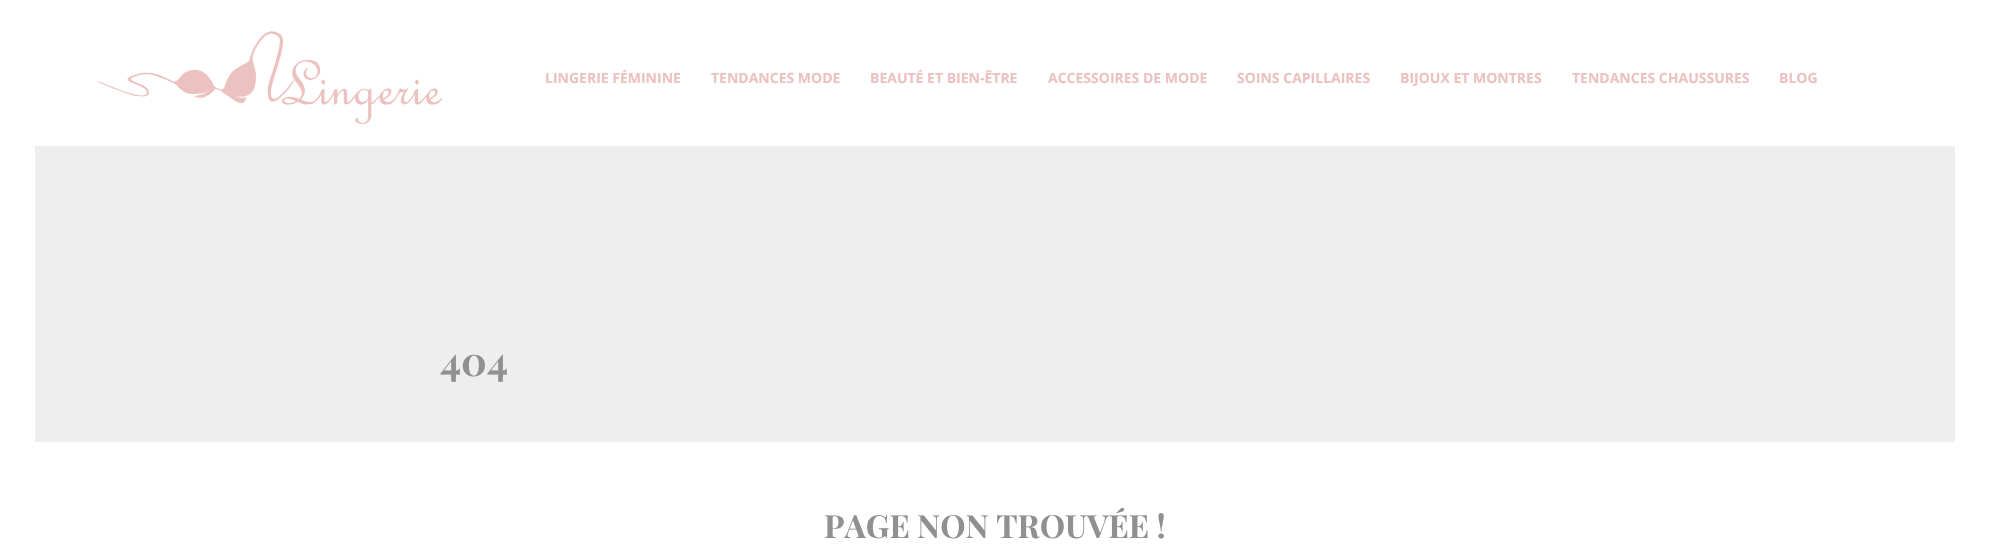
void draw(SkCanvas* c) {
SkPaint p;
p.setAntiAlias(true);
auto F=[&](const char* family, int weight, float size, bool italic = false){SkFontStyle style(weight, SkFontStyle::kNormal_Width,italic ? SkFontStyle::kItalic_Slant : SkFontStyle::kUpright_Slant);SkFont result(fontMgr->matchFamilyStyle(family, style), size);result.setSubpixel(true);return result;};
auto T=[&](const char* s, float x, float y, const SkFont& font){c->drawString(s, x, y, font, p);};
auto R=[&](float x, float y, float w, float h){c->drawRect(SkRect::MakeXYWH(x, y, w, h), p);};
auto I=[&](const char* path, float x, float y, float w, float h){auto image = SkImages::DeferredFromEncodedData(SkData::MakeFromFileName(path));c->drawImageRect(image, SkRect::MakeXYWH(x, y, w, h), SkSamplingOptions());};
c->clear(0xffffffff);
I("1.png",95,31,348,93);
auto f1 = F("Open Sans",700,14);
p.setColor(0xffebc2bf);
T("LINGERIE FÉMININE",545,83,f1);
T("TENDANCES MODE",711,83,f1);
T("BEAUTÉ ET BIEN-ÊTRE",870,83,f1);
T("ACCESSOIRES DE MODE",1048,83,f1);
T("SOINS CAPILLAIRES",1237,83,f1);
T("BIJOUX ET MONTRES",1400,83,f1);
T("TENDANCES CHAUSSURES",1572,83,f1);
T("BLOG",1779,83,f1);
p.setColor(0xffeeeeee);
R(35,146,1920,296);
auto f2 = F("Playfair Display",700,40);
p.setColor(0xff909090);
T("404",440,376,f2);
auto f3 = F("Playfair Display",700,32);
T("PAGE NON TROUVÉE !",824,538,f3);
}
